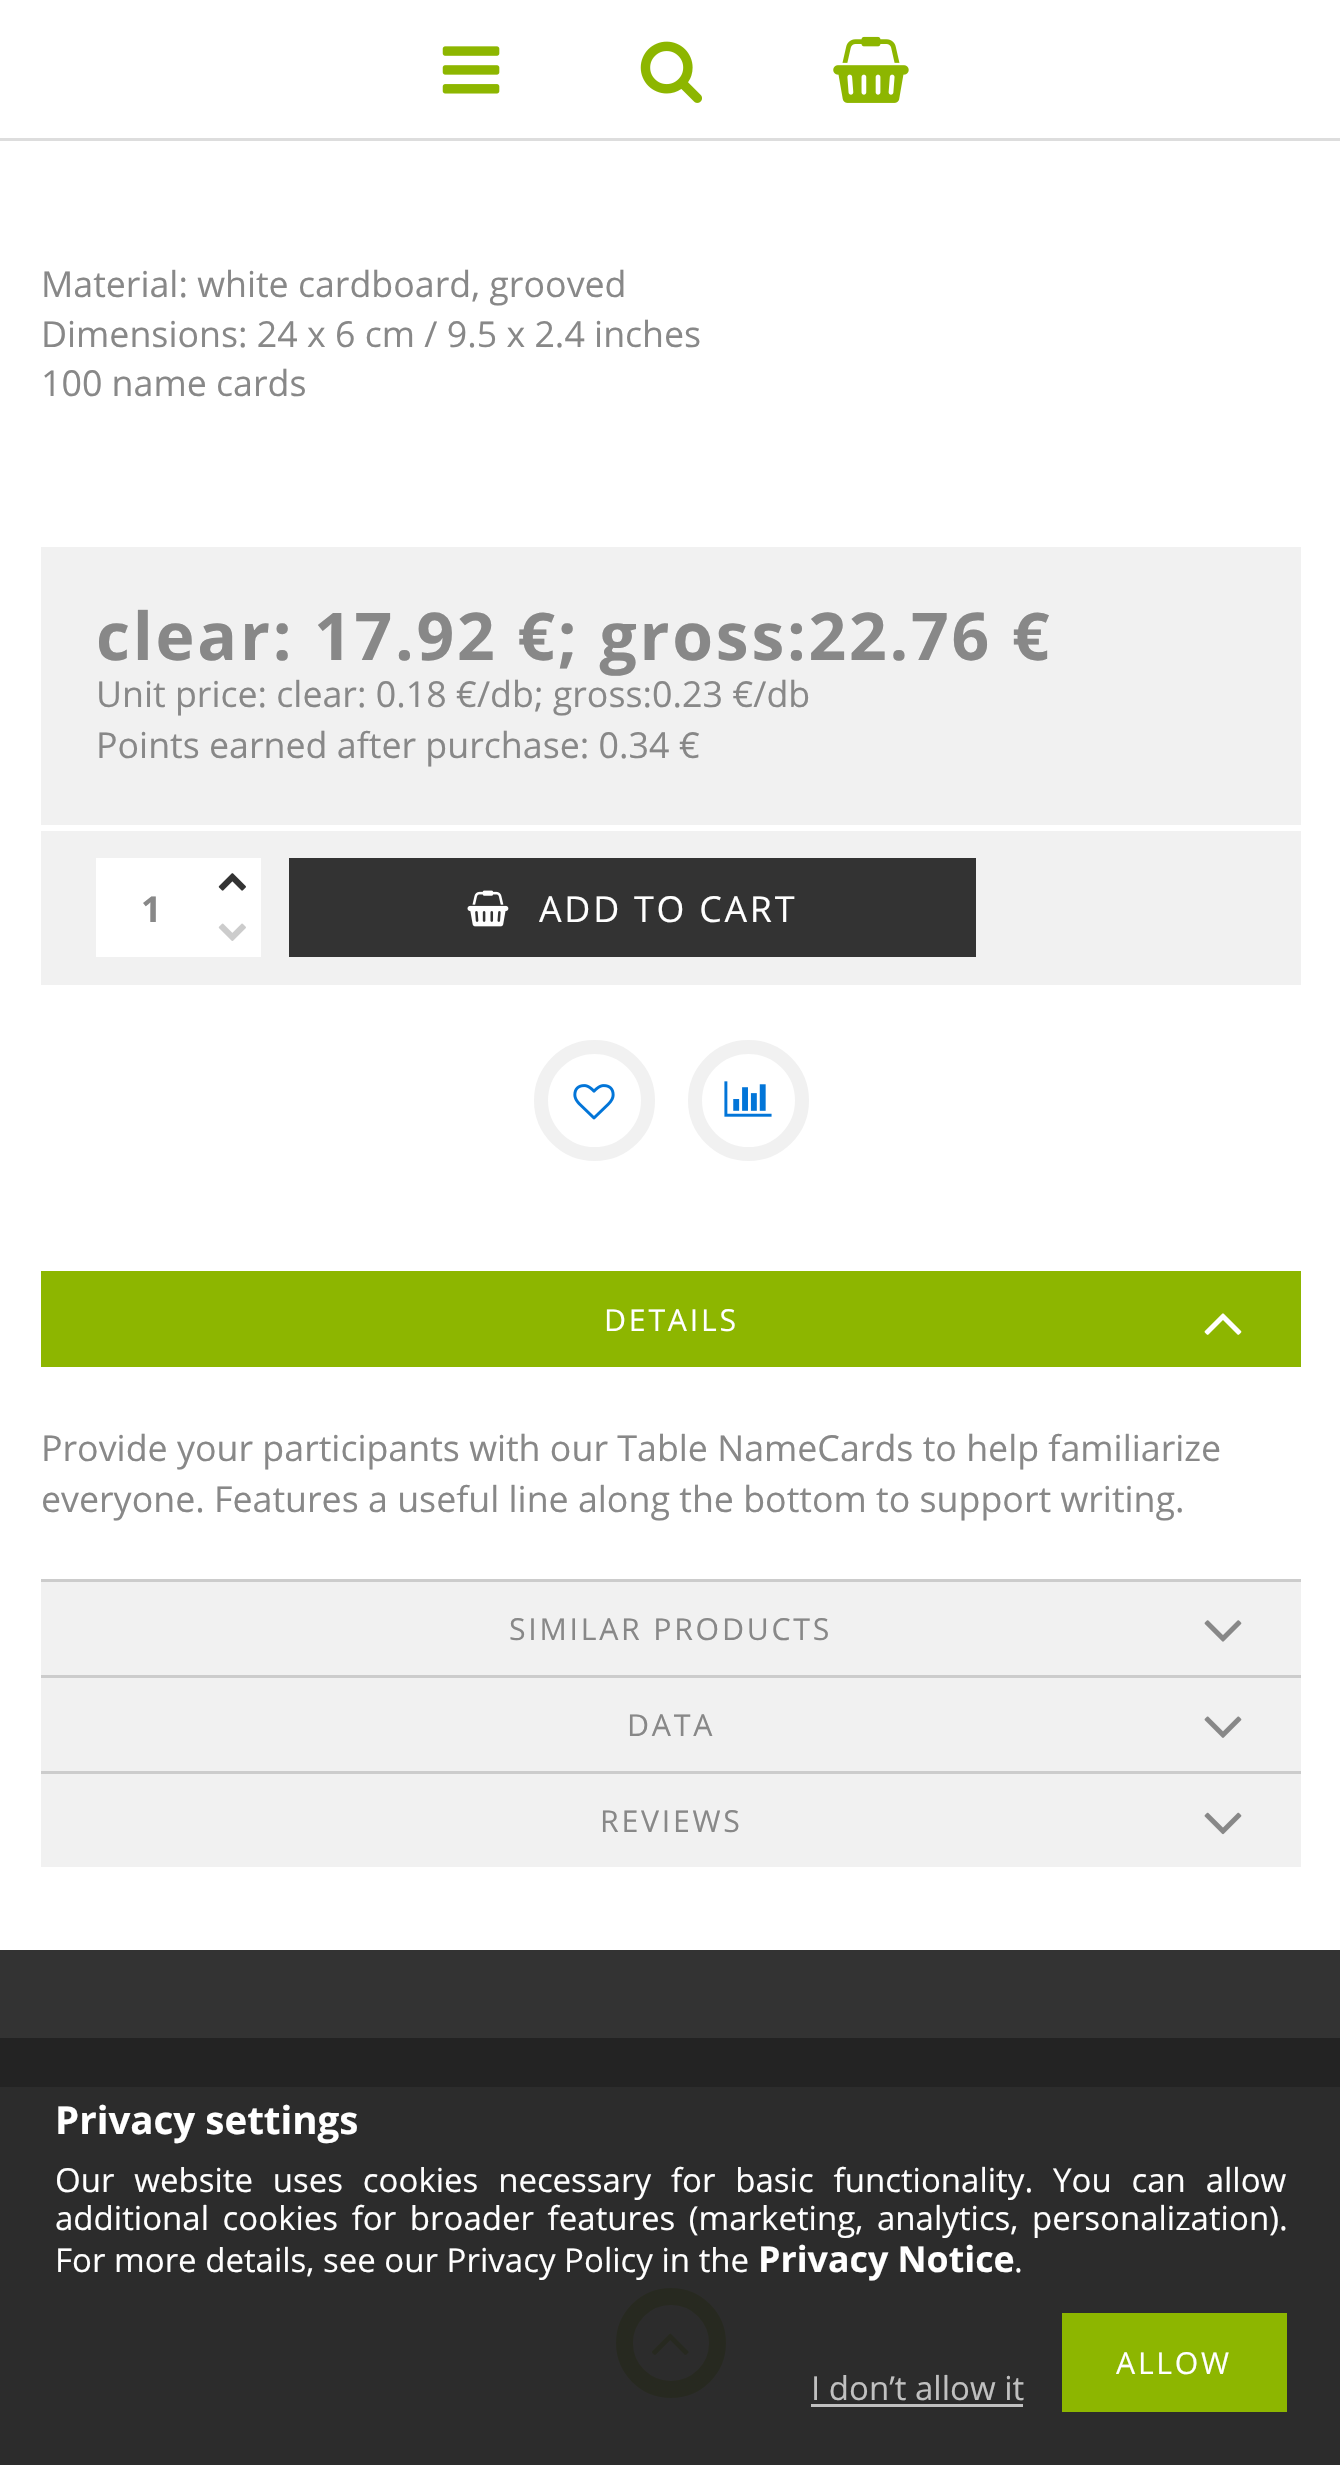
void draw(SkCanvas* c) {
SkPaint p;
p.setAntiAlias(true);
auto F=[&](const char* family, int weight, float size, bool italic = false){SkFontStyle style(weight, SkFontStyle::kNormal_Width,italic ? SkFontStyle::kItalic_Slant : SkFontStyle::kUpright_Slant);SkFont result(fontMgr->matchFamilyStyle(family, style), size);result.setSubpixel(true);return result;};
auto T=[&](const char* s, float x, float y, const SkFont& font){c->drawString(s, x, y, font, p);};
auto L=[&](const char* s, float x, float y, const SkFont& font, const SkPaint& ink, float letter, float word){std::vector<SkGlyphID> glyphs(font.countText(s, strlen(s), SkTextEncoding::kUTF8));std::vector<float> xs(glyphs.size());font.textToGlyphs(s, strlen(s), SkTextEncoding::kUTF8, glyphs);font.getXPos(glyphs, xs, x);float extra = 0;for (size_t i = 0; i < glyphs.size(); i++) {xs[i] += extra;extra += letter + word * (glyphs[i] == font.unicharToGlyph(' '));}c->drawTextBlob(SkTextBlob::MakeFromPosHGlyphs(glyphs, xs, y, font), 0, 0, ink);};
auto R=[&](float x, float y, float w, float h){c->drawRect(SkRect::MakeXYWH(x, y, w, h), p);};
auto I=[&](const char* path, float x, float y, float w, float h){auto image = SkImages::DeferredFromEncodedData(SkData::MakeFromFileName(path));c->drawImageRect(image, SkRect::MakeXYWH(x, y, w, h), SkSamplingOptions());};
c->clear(0xffffffff);
p.setColor(0xffdddddd);
R(0,138,1340,3);
I("1.png",442,46,58,48);
I("2.png",640,41,62,62);
I("3.png",833,36,76,67);
auto f1 = F("Open Sans",400,35.75);
p.setColor(0xff888888);
T("Material: white cardboard, grooved",41,297,f1);
T("Dimensions: 24 x 6 cm / 9.5 x 2.4 inches",41,347,f1);
T("100 name cards",41,396,f1);
p.setColor(0xfff1f1f1);
R(41,547,1260,278);
auto f2 = F("Open Sans",700,66);
p.setColor(0xff888888);
L("clear: 17.92 €; gross:22.76 €",96,660,f2,p,2.75,0);
T("Unit price: clear: 0.18 €/db; gross:0.23 €/db",96,707,f1);
T("Points earned after purchase: 0.34 €",96,758,f1);
p.setColor(0xfff1f1f1);
R(41,831,1260,154);
p.setColor(0xffffffff);
R(96,858,110,99);
auto f3 = F("Open Sans",700,35.75);
p.setColor(0xff888888);
T("1",141,922,f3);
p.setColor(0xffffffff);
R(206,858,55,99);
I("4.png",218,873,28,18);
I("5.png",218,923,28,18);
p.setColor(0xff333333);
R(289,858,687,99);
I("6.png",467,890,42,37);
p.setColor(0xffffffff);
L("ADD TO CART",539,922,f1,p,2.75,0);
p.setStroke(true);
p.setStrokeWidth(14);
p.setColor(0xfff1f1f1);
c->drawCircle(594.5,1100.5,53.5,p);
I("7.png",573,1084,42,36);
c->drawCircle(748.5,1100.5,53.5,p);
I("8.png",724,1081,48,36);
p.setStroke(false);
p.setColor(0xff8db600);
R(41,1271,1260,96);
auto f4 = F("Open Sans",400,30.25);
p.setColor(0xffffffff);
L("DETAILS",604,1331,f4,p,2.75,0);
I("9.png",1204,1313,38,22);
p.setColor(0xff888888);
T("Provide your participants with our Table NameCards to help familiarize",41,1461,f1);
T("everyone. Features a useful line along the bottom to support writing.",41,1512,f1);
p.setColor(0xfff1f1f1);
R(41,1582,1260,93);
p.setColor(0xffcccccc);
R(41,1579,1260,3);
p.setColor(0xff888888);
L("SIMILAR PRODUCTS",509,1640,f4,p,2.75,0);
I("10.png",1204,1620,38,22);
p.setColor(0xfff1f1f1);
R(41,1678,1260,93);
p.setColor(0xffcccccc);
R(41,1675,1260,3);
p.setColor(0xff888888);
L("DATA",627,1736,f4,p,2.75,0);
I("11.png",1204,1716,38,22);
p.setColor(0xfff1f1f1);
R(41,1774,1260,93);
p.setColor(0xffcccccc);
R(41,1771,1260,3);
p.setColor(0xff888888);
L("REVIEWS",600,1832,f4,p,2.75,0);
I("12.png",1204,1812,38,23);
p.setColor(0xff333333);
R(0,1950,1340,88);
p.setColor(0xff232323);
R(0,2038,1340,49);
p.setColor(0xff2c2c2c);
R(0,2087,1340,378);
auto f5 = F("Open Sans",700,38.5);
p.setColor(0xffffffff);
T("Privacy settings",55,2134,f5);
auto f6 = F("Open Sans",400,33);
L("Our website uses cookies necessary for basic functionality. You can allow",55,2192,f6,p,0,11.25);
L("additional cookies for broader features (marketing, analytics, personalization).",55,2230,f6,p,0,5);
T("For more details, see our Privacy Policy in the",55,2272,f6);
T("Privacy Notice",758,2272,f3);
T(".",1014,2272,f6);
p.setColor(0xff8db600);
R(1062,2313,225,99);
p.setColor(0xffffffff);
L("ALLOW",1116,2374,f4,p,2.75,0);
p.setColor(0xffc0c0c0);
T("I don’t allow it",811,2400,f6);
R(811,2404,212,3);
p.setStroke(true);
p.setStrokeWidth(17);
p.setColor(0xff272920);
c->drawCircle(671,2343,46.5,p);
I("13.png",651,2333,38,23);
}
